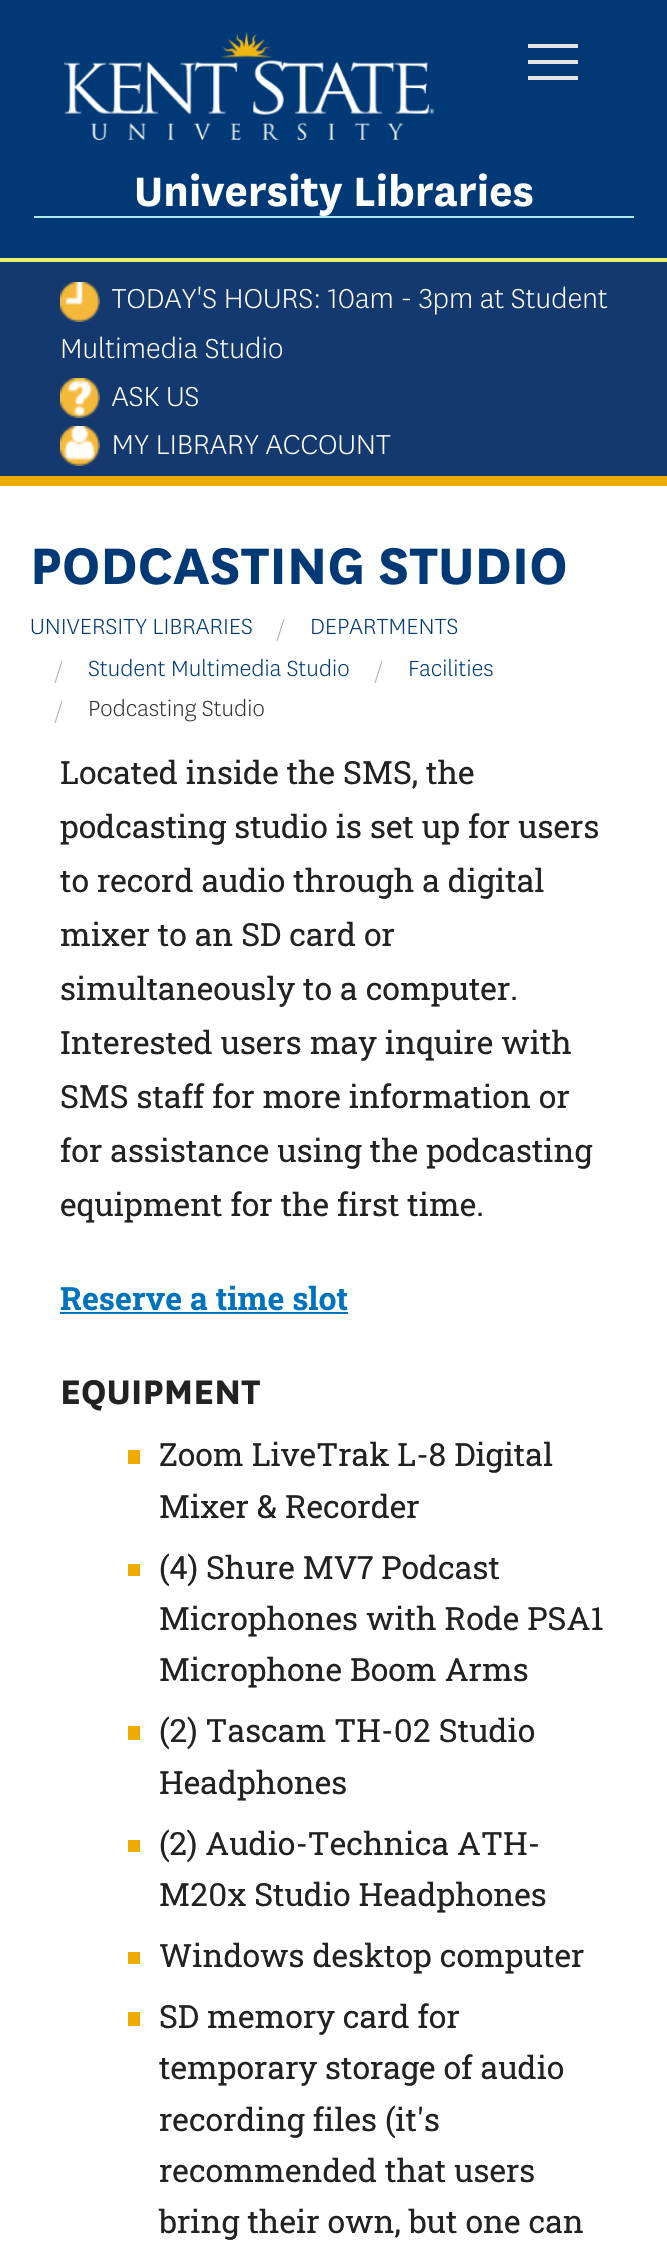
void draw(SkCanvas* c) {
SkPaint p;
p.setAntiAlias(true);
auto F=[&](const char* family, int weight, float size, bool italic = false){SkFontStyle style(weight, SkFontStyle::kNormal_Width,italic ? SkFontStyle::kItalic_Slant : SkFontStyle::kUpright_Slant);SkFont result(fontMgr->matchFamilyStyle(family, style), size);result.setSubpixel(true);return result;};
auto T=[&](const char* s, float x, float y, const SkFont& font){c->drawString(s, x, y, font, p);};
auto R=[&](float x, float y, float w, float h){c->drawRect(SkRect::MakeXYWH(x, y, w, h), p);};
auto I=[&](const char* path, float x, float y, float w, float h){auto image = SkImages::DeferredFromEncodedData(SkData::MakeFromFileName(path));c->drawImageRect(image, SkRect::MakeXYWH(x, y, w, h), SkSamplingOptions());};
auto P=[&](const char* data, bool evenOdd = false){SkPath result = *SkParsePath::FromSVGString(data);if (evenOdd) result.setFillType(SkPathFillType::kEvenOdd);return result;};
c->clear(0xffffffff);
p.setColor(0xff003976);
R(0,0,667,258);
p.setColor(0xffefab00);
R(0,476,667,10);
I("1.png",64,32,370,108);
p.setColor(0xffe6e6e6);
R(528,60,50,4);
R(528,44,50,4);
R(528,76,50,4);
p.setColor(0xffaeeae5);
R(34,216,600,2);
I("2.png",136,173,397,43);
p.setColor(0xff14396e);
R(0,262,667,214);
p.setColor(0xffebee6b);
R(0,258,667,4);
I("3.png",60,282,40,40);
I("4.png",111,286,208,23);
I("5.png",328,286,280,29);
I("6.png",62,336,221,23);
I("7.png",60,378,40,40);
I("8.png",111,386,87,21);
I("9.png",60,426,40,40);
I("10.png",114,434,277,21);
I("11.png",34,547,532,38);
I("12.png",31,618,221,17);
p.setColor(0xffaaaaaa);
c->drawPath(P("M283.5 619h1l-7 22h-1z"),p);
I("13.png",312,618,146,17);
c->drawPath(P("M61.5 661h1l-7 22h-1z"),p);
I("14.png",88,658,261,19);
c->drawPath(P("M381.5 661h1l-7 22h-1z"),p);
I("15.png",410,658,83,19);
c->drawPath(P("M61.5 701h1l-7 22h-1z"),p);
I("16.png",90,698,174,24);
auto f1 = F("Roboto Slab",400,32);
p.setColor(0xff222222);
T("Located inside the SMS, the",60,784,f1);
T("podcasting studio is set up for users",60,838,f1);
T("to record audio through a digital",60,892,f1);
T("mixer to an SD card or",60,946,f1);
T("simultaneously to a computer.",60,1000,f1);
T("Interested users may inquire with",60,1054,f1);
T("SMS staff for more information or",60,1108,f1);
T("for assistance using the podcasting",60,1162,f1);
T("equipment for the first time.",60,1216,f1);
auto f2 = F("Roboto Slab",700,32);
p.setColor(0xff0073bd);
T("Reserve a time slot",60,1310,f2);
R(60,1312,288,2);
I("17.png",63,1380,197,31);
p.setColor(0xffefab00);
R(128,1450,12,14);
p.setColor(0xff222222);
T("Zoom LiveTrak L-8 Digital",159,1466,f1);
T("Mixer & Recorder",159,1518,f1);
p.setColor(0xffefab00);
R(128,1564,12,12);
auto f3 = F("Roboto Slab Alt",400,32);
p.setColor(0xff222222);
T("(4) Shure MV7 Podcast",159,1579,f3);
T("Microphones with Rode PSA1",159,1630,f1);
T("Microphone Boom Arms",159,1681,f1);
p.setColor(0xffefab00);
R(128,1726,12,14);
p.setColor(0xff222222);
T("(2) Tascam TH-02 Studio",159,1742,f3);
T("Headphones",159,1794,f1);
p.setColor(0xffefab00);
R(128,1840,12,12);
p.setColor(0xff222222);
T("(2) Audio-Technica ATH-",159,1855,f1);
T("M20x Studio Headphones",159,1906,f3);
p.setColor(0xffefab00);
R(128,1952,12,12);
p.setColor(0xff222222);
T("Windows desktop computer",159,1967,f1);
p.setColor(0xffefab00);
R(128,2012,12,14);
p.setColor(0xff222222);
T("SD memory card for",159,2028,f1);
T("temporary storage of audio",159,2079,f1);
T("recording files (it's",159,2131,f1);
T("recommended that users",159,2182,f1);
T("bring their own, but one can",159,2233,f1);
}
